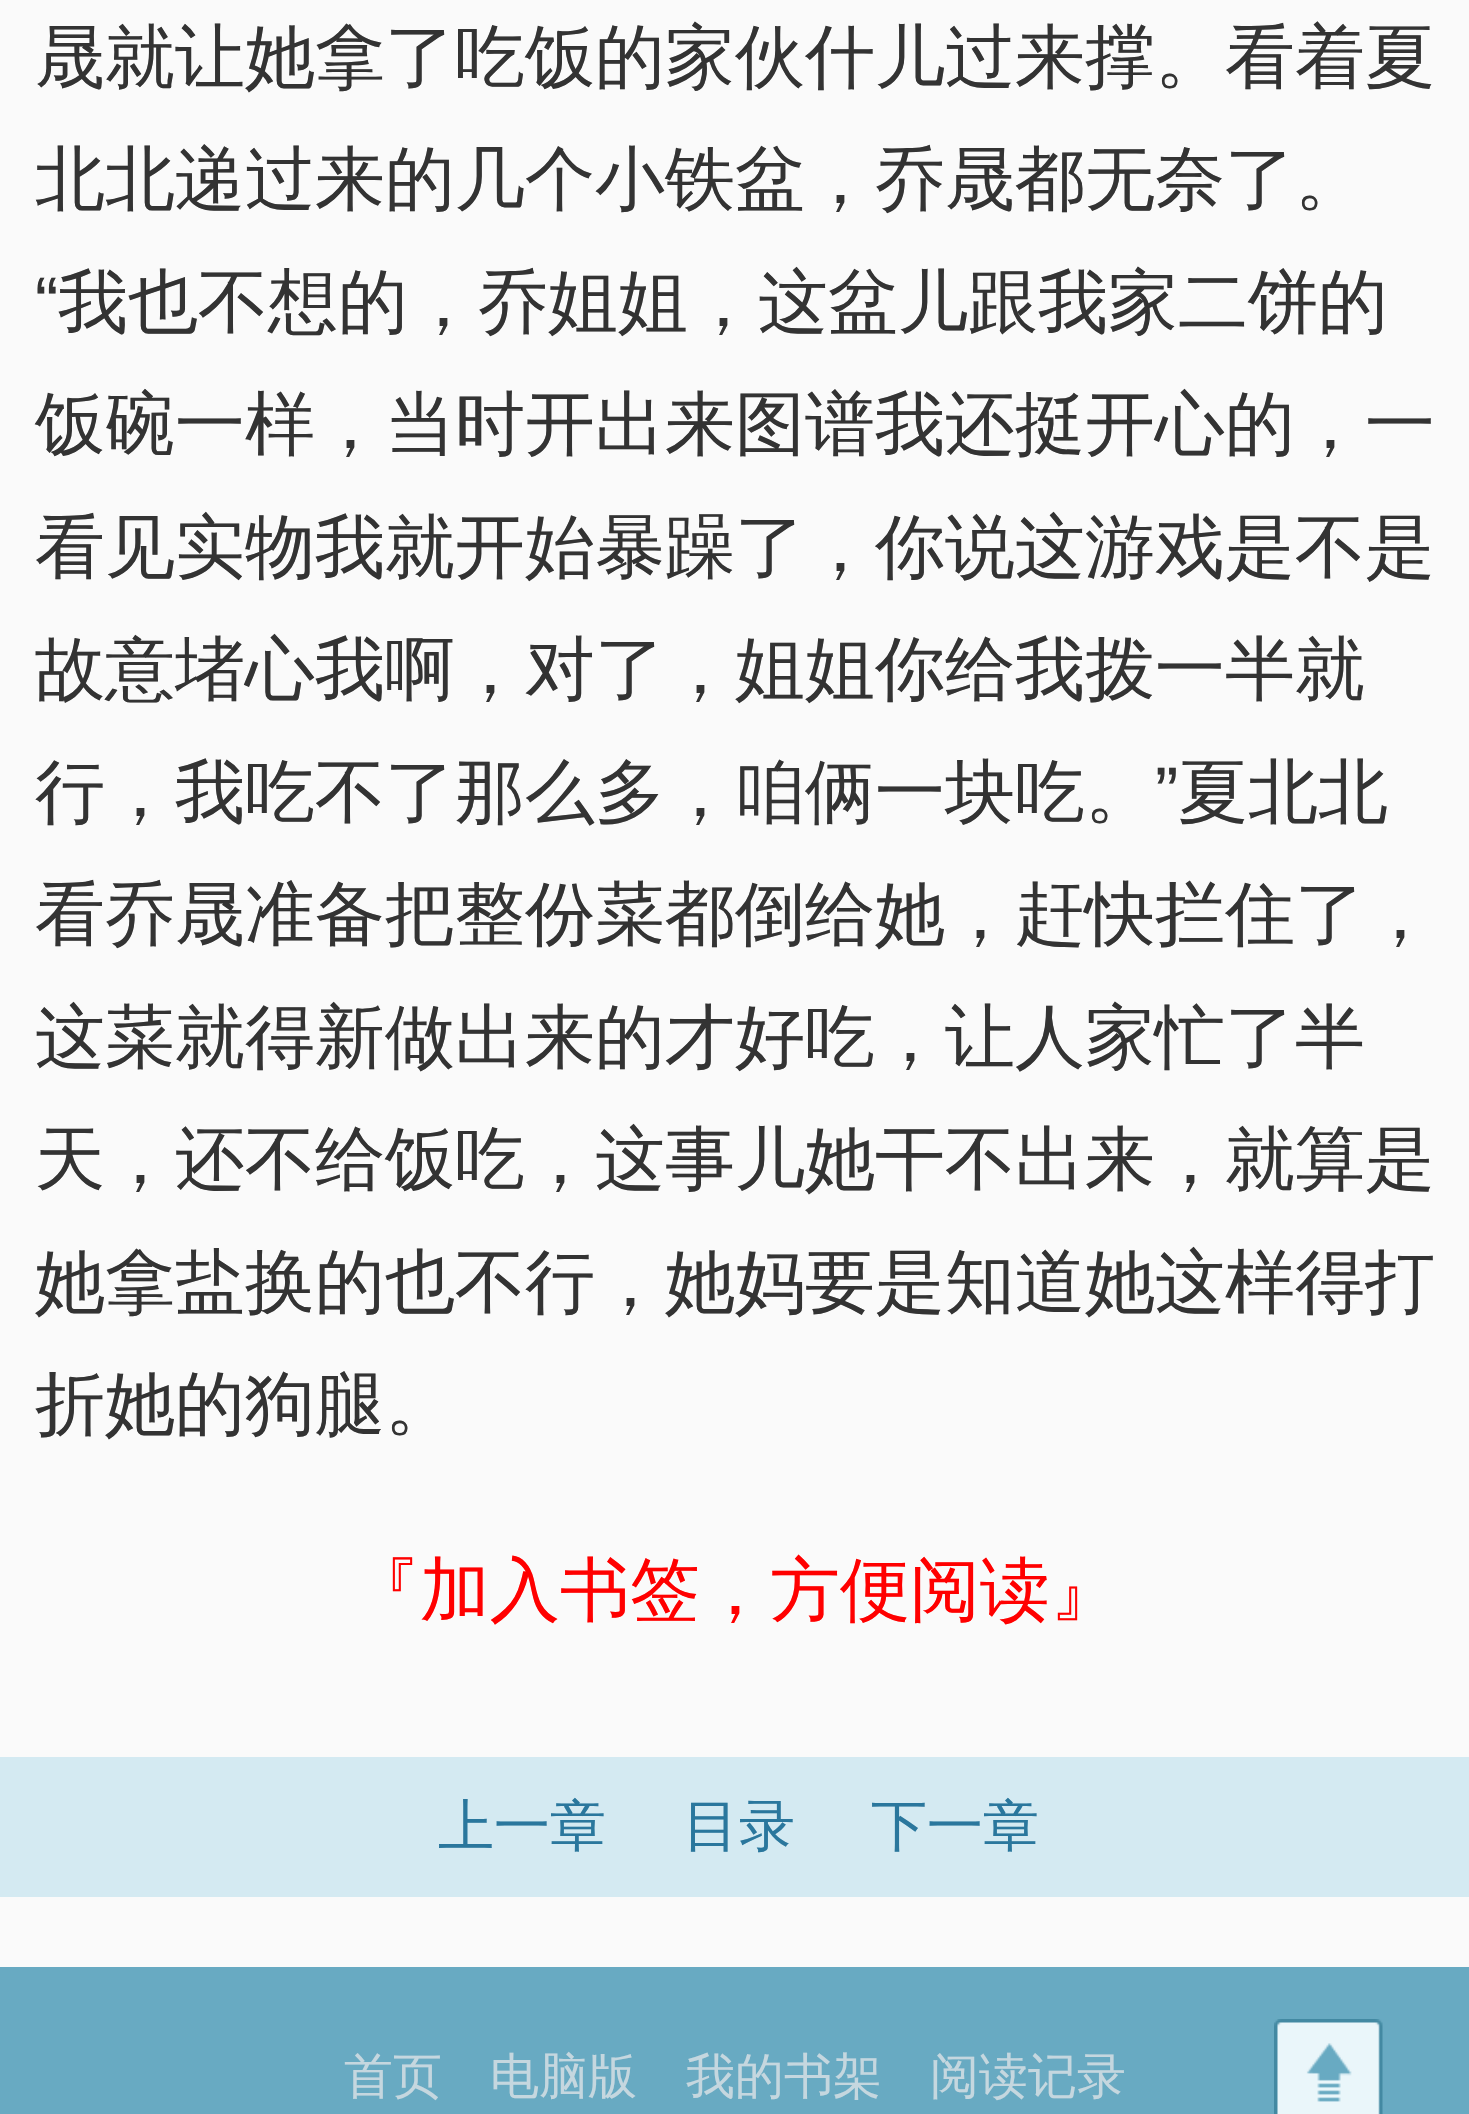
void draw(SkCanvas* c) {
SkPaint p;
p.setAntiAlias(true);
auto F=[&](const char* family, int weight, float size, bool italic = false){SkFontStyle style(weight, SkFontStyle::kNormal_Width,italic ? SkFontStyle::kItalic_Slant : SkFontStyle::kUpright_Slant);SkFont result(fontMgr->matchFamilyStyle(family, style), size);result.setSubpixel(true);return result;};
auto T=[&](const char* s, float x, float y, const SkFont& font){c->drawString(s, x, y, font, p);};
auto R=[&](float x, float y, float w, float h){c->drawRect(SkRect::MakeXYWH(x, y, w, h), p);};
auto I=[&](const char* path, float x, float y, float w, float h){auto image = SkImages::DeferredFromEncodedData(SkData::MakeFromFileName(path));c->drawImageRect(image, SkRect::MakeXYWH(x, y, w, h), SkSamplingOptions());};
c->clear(0xfffafafa);
auto f1 = F("WenQuanYi Zen Hei",500,70);
p.setColor(0xff333333);
T("晟就让她拿了吃饭的家伙什儿过来撑。看着夏",35,81,f1);
T("北北递过来的几个小铁盆，乔晟都无奈了。",35,203,f1);
auto f2 = F("Liberation Sans",400,70);
T("“",35,326,f2);
T("我也不想的，乔姐姐，这盆儿跟我家二饼的",58,326,f1);
T("饭碗一样，当时开出来图谱我还挺开心的，一",35,448,f1);
T("看见实物我就开始暴躁了，你说这游戏是不是",35,571,f1);
T("故意堵心我啊，对了，姐姐你给我拨一半就",35,693,f1);
T("行，我吃不了那么多，咱俩一块吃。",35,816,f1);
T("”",1155,816,f2);
T("夏北北",1178,816,f1);
T("看乔晟准备把整份菜都倒给她，赶快拦住了，",35,938,f1);
T("这菜就得新做出来的才好吃，让人家忙了半",35,1061,f1);
T("天，还不给饭吃，这事儿她干不出来，就算是",35,1183,f1);
T("她拿盐换的也不行，她妈要是知道她这样得打",35,1306,f1);
T("折她的狗腿。",35,1428,f1);
p.setColor(0xffff0000);
T("『加入书签，方便阅读』",350,1614,f1);
p.setColor(0xffd4eaf2);
R(0,1757,1469,140);
auto f3 = F("WenQuanYi Zen Hei",500,56);
p.setColor(0xff2a779d);
T("上一章",438,1845,f3);
T("目录",683,1845,f3);
T("下一章",871,1845,f3);
p.setColor(0xff68aac2);
R(0,1967,1469,147);
auto f4 = F("WenQuanYi Zen Hei",500,49);
p.setColor(0xffc5d7df);
T("首页",344,2093,f4);
T("电脑版",490,2093,f4);
T("我的书架",686,2093,f4);
T("阅读记录",930,2093,f4);
I("1.png",1274,2019,109,95);
}
